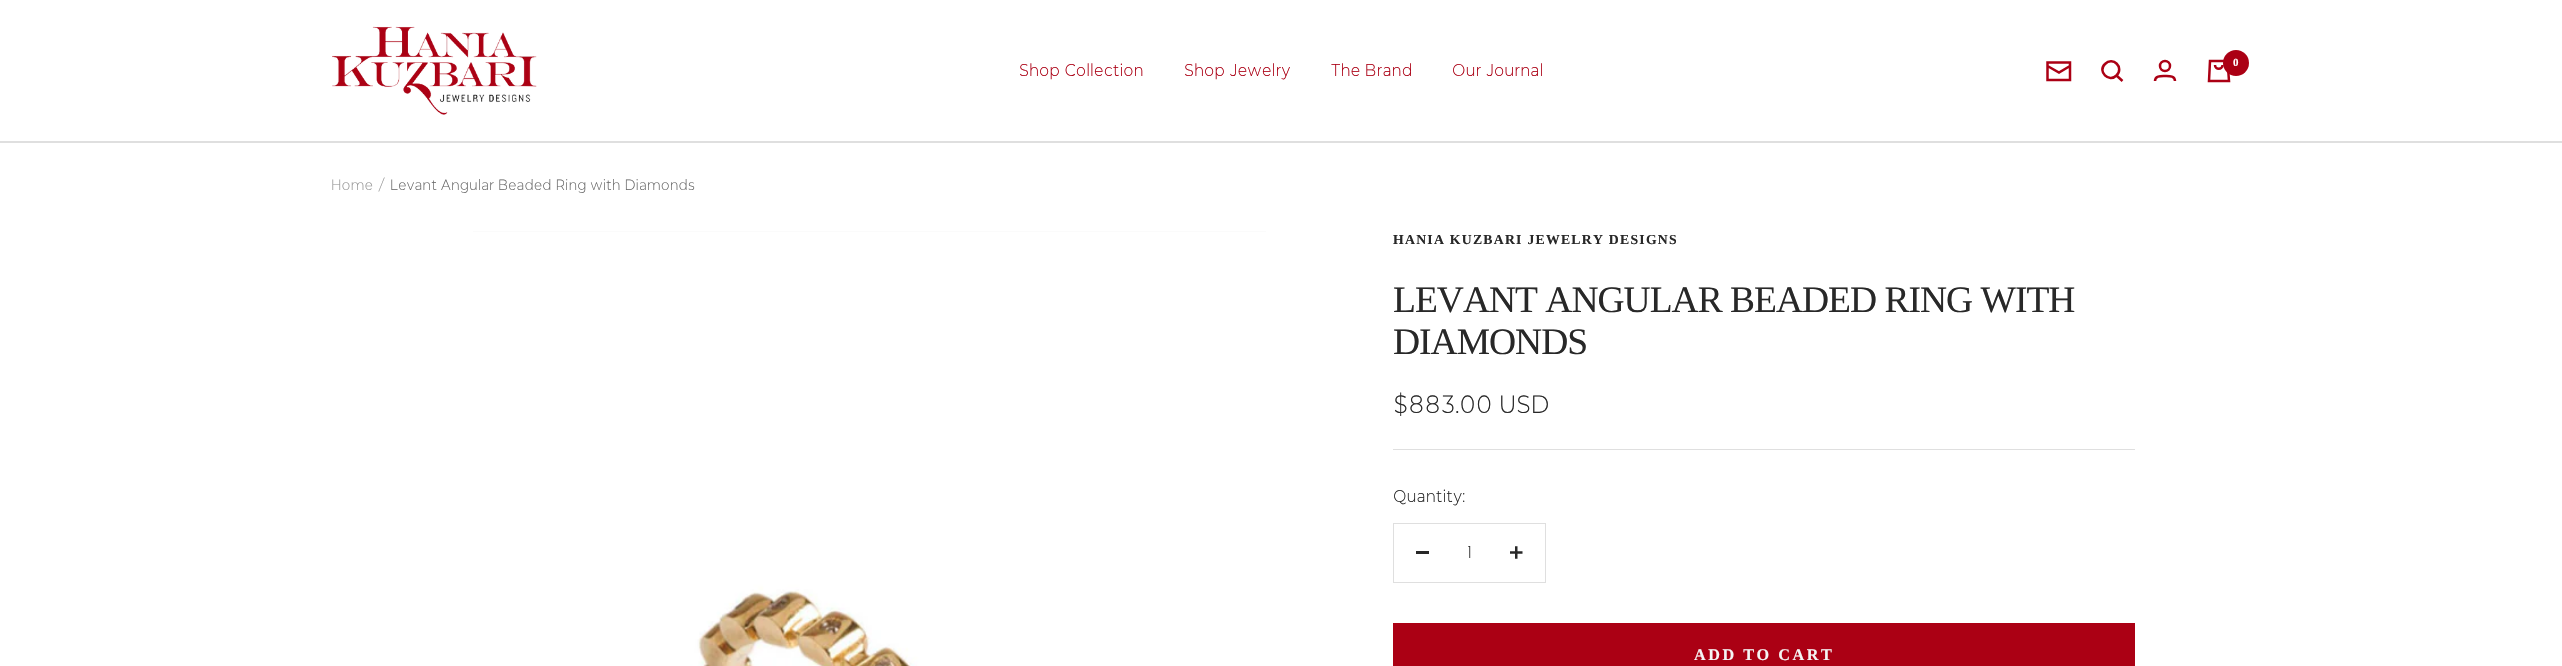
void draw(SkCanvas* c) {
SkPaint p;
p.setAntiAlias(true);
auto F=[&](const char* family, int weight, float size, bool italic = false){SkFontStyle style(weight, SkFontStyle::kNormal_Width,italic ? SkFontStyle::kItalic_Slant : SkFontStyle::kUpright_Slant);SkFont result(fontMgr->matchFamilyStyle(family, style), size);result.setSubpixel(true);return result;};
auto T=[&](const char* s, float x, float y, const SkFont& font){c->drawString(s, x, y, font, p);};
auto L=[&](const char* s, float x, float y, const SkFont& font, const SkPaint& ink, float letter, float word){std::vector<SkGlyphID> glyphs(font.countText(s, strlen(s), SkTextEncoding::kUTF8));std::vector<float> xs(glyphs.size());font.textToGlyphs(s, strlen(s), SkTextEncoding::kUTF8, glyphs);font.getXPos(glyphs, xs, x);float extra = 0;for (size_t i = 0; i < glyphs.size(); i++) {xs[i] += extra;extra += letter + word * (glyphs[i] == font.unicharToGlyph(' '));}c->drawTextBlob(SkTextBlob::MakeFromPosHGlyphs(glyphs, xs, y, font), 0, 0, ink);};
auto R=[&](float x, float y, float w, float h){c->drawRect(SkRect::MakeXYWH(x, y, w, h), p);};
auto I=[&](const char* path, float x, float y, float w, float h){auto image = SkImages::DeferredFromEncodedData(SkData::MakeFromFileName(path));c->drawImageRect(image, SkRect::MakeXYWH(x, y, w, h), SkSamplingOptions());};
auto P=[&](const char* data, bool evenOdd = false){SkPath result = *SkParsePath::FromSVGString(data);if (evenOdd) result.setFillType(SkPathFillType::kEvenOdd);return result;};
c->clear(0xffffffff);
p.setColor(0xffdfdfdf);
c->drawPath(P("M0 141v2h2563v-142h-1v140z"),p);
I("1.png",332,26,205,89);
auto f1 = F("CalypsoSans",400,18.75);
p.setColor(0xffab0014);
T("Shop Collection",1019,76,f1);
T("Shop Jewelry",1184,76,f1);
T("The Brand",1331,76,f1);
T("Our Journal",1452,76,f1);
p.setStroke(true);
p.setStrokeWidth(2.5);
c->drawPath(P("M2070 66l-11 6.5l-11.5-6.5m0-3.5h22.5v17.5h-22.5z"),p);
c->drawPath(P("M2116.5 75.5c8-8-3.5-19.5-11.5-11.5c-8 7.5 4 19 11.5 11.5zm0 0l6 5.5"),p);
c->drawCircle(2165,66,5,p);
c->drawPath(P("M2155 81c0-5.5 6-5 10-5c4 0 10-.5 10 5"),p);
c->drawPath(P("M2210 61h17.5l1.5 20h-20zm5 4c0 5 7.5 5 7.5 0"),p);
p.setStroke(false);
c->drawCircle(2236,63,13,p);
auto f2 = F("Liberation Serif",700,11);
p.setColor(0xffffffff);
T("0",2233,66,f2);
auto f3 = F("CalypsoSans",400,16.25);
p.setColor(0xff969696);
T("Home",331,190,f3);
T("/",378,190,f3);
p.setColor(0xff696969);
T("Levant Angular Beaded Ring with Diamonds",390,190,f3);
p.setColor(0xfff5f5f5);
R(473,231,793,1);
I("2.png",473,231,793,435);
p.setColor(0xffdfdfdf);
R(1393,449,742,1);
auto f4 = F("Liberation Serif",700,13.75);
p.setColor(0xff282828);
L("HANIA KUZBARI JEWELRY DESIGNS",1393,244,f4,p,1.25,0);
auto f5 = F("Liberation Serif",400,37.5);
L("LEVANT ANGULAR BEADED RING WITH",1393,312,f5,p,-1,0);
L("DIAMONDS",1393,354,f5,p,-1,0);
auto f6 = F("CalypsoSans",400,27.5);
T("$883.00 USD",1393,413,f6);
T("Quantity:",1393,502,f1);
p.setStroke(true);
p.setStrokeWidth(1);
p.setColor(0xffdfdfdf);
c->drawRect(SkRect::MakeXYWH(1393.5,523.5,152,59),p);
p.setStroke(false);
p.setColor(0xff282828);
R(1416,551,13,3);
T("1",1467,558,f1);
I("3.png",1510,546,13,13);
p.setColor(0xffab0014);
R(1393,623,742,43);
auto f7 = F("Liberation Serif",700,16.25);
p.setColor(0xfff5f5f5);
L("ADD TO CART",1694,660,f7,p,2.5,0);
}
